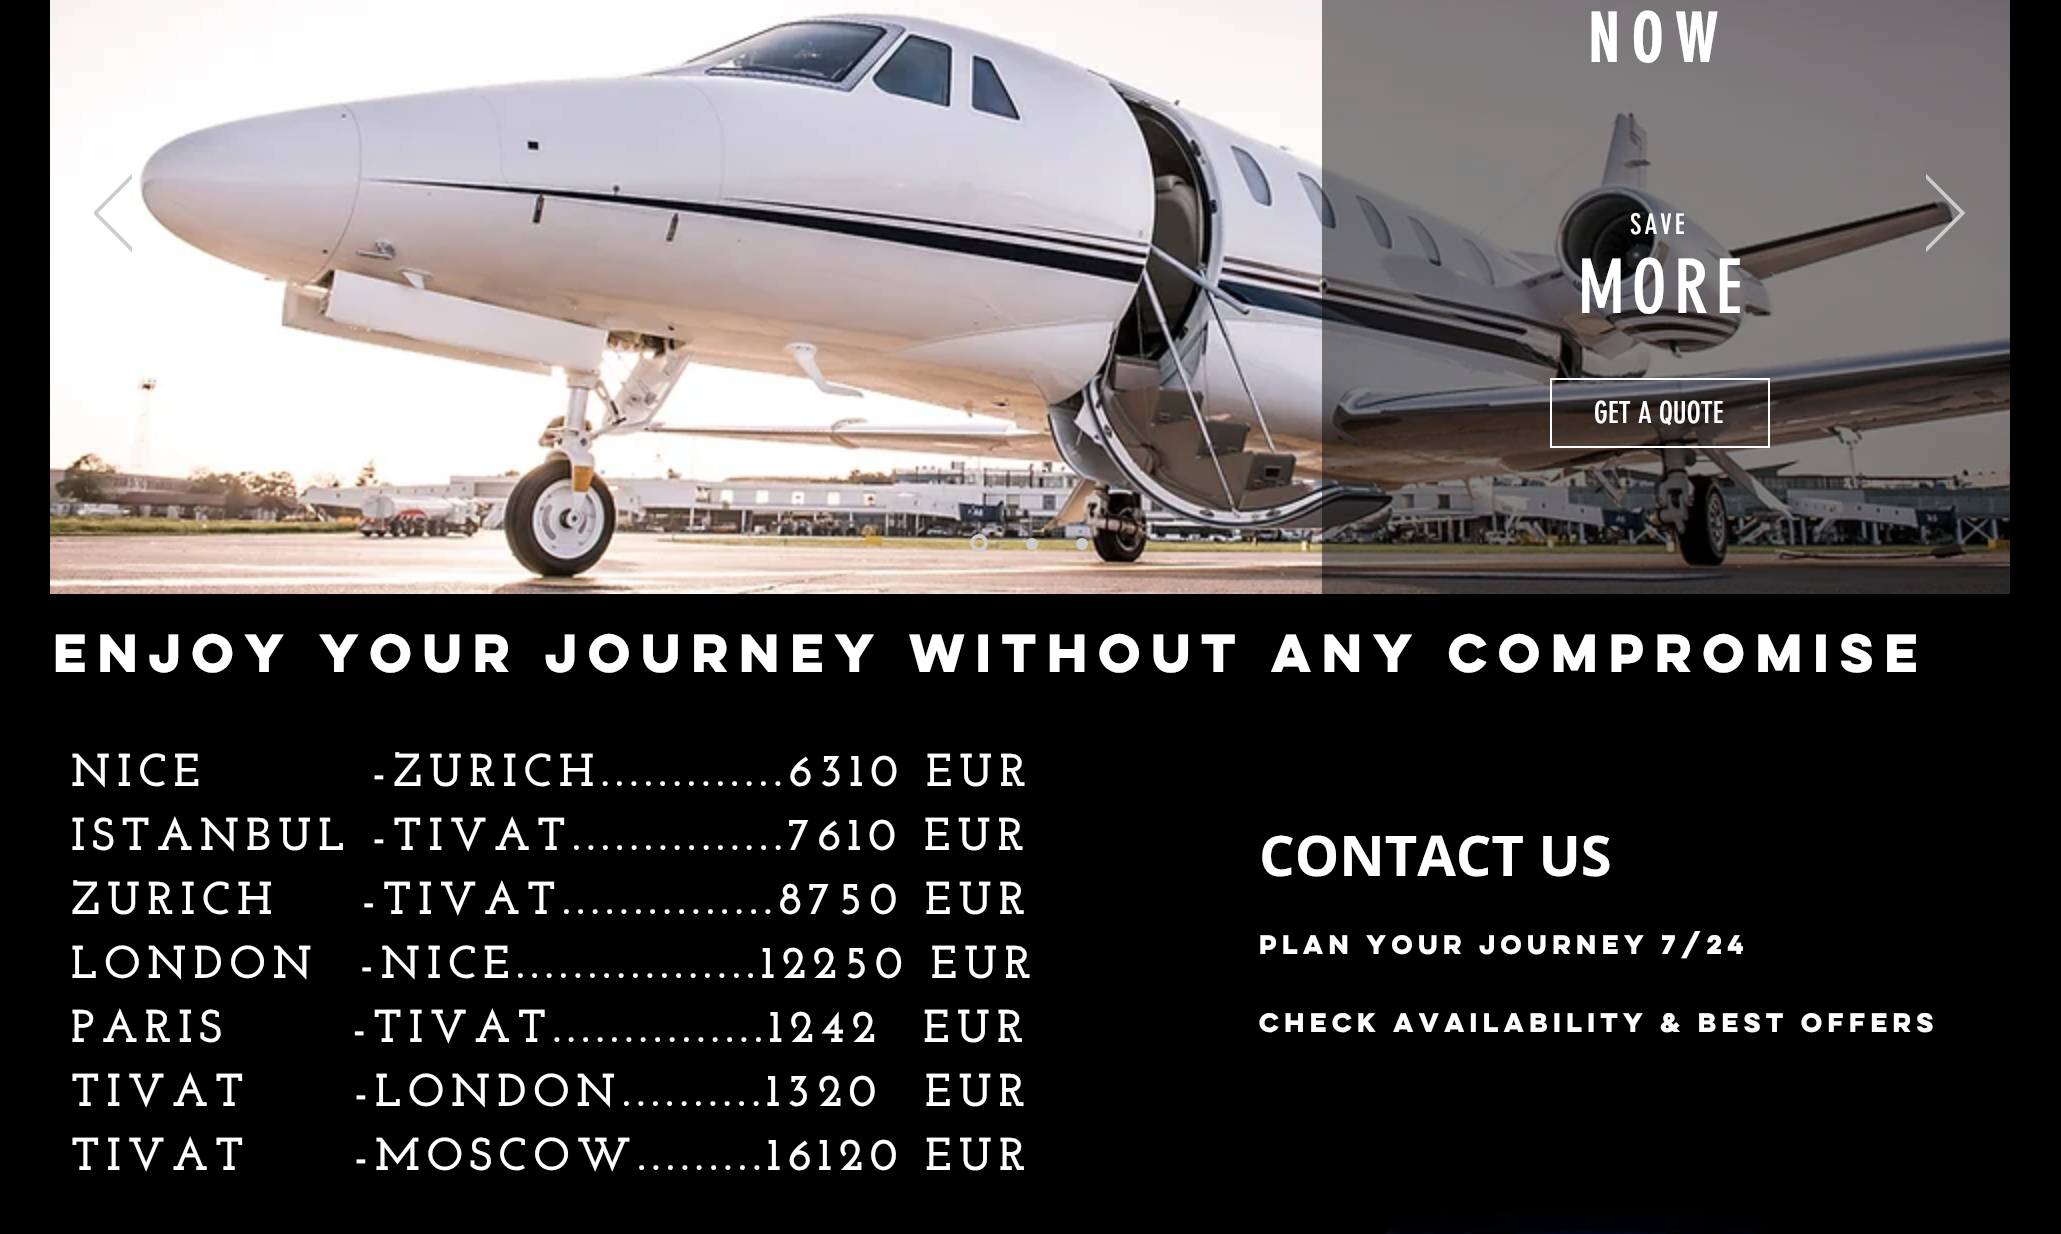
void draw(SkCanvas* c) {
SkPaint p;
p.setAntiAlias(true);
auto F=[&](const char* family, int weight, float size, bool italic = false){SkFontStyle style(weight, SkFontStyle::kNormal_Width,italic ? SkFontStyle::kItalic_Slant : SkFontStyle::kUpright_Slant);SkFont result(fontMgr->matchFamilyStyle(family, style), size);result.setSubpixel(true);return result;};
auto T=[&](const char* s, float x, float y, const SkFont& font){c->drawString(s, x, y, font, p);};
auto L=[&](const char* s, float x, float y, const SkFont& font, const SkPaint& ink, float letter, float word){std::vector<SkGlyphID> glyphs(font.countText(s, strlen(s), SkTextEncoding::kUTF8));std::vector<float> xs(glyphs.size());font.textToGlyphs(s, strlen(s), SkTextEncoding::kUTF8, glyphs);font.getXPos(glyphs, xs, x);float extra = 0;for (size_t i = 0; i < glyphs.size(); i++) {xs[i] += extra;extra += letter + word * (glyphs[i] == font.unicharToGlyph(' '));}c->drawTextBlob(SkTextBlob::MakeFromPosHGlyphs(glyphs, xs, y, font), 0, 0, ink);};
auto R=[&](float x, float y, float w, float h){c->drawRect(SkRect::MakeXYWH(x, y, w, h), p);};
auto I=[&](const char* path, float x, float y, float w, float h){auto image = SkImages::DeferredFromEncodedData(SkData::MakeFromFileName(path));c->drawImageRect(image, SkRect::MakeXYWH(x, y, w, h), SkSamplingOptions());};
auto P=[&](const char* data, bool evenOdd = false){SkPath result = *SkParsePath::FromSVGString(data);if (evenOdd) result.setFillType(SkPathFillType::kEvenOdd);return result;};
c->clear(0xff000000);
I("1.png",50,0,1960,594);
c->save();
c->clipRect(SkRect::MakeXYWH(94,174,38,80));
p.setStroke(true);
p.setStrokeWidth(1.9);
p.setColor(0xffcccccc);
c->drawPath(P("M132.5 251.5l-38.5-38.5l38.5-38.5l1.5 1l-37.5 37.5l37.5 37.5z"),p);
c->restore();
p.setStroke(false);
p.setColor(0x7a000000);
R(1322,0,688,594);
auto f1 = F("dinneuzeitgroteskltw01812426",700,66);
p.setColor(0xffffffff);
L("NOW",1588,62,f1,p,13,0);
auto f2 = F("dinneuzeitgroteskltw01812426",400,28);
L("SAVE",1630,234,f2,p,3,0);
auto f3 = F("dinneuzeitgroteskltw01812426",400,74);
L("MORE",1578,313,f3,p,7.5,0);
p.setStroke(true);
p.setStrokeWidth(2);
c->drawRect(SkRect::MakeXYWH(1551,379,218,68),p);
auto f4 = F("dinneuzeitgroteskltw01812426",400,30);
p.setStroke(false);
T("GET A QUOTE",1594,423,f4);
c->save();
c->clipRect(SkRect::MakeXYWH(1926,174,40,80));
p.setStroke(true);
p.setStrokeWidth(1.9);
p.setColor(0xffcccccc);
c->drawPath(P("M1925.5 251.5l38.5-38.5l-38.5-38.5l-1.5 1l37.5 37.5l-37.5 37.5z"),p);
c->restore();
p.setStrokeWidth(4);
c->drawCircle(979,543,7,p);
p.setStroke(false);
c->drawCircle(1032,544,6,p);
c->drawCircle(1082,544,6,p);
auto f5 = F("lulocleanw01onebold",700,48);
p.setColor(0xffffffff);
T("ENJOY YOUR JOURNEY WITHOUT ANY COMPROMISE",53,672,f5);
auto f6 = F("Josefin Slab",700,46);
L("NICE        -ZURICH.............6310 EUR",71,786,f6,p,6.9,0);
L("ISTANBUL -TIVAT...............7610 EUR",71,850,f6,p,6.9,0);
L("ZURICH    -TIVAT...............8750 EUR",71,914,f6,p,6.9,0);
L("LONDON  -NICE.................12250 EUR",71,978,f6,p,6.9,0);
L("PARIS      -TIVAT...............1242  EUR",71,1042,f6,p,6.9,0);
L("TIVAT     -LONDON..........1320",71,1106,f6,p,6.9,0);
L("EUR",925,1106,f6,p,6.9,0);
L("TIVAT     -MOSCOW.........16120 EUR",71,1170,f6,p,6.9,0);
auto f7 = F("Open Sans",700,56);
T("CONTACT US",1259,876,f7);
auto f8 = F("lulocleanw01onebold",700,24);
T("PLAN YOUR JOURNEY 7/24",1259,954,f8);
T("CHECK AVAILABILITY & BEST OFFERS",1259,1032,f8);
I("2.png",1384,1214,383,20);
}
